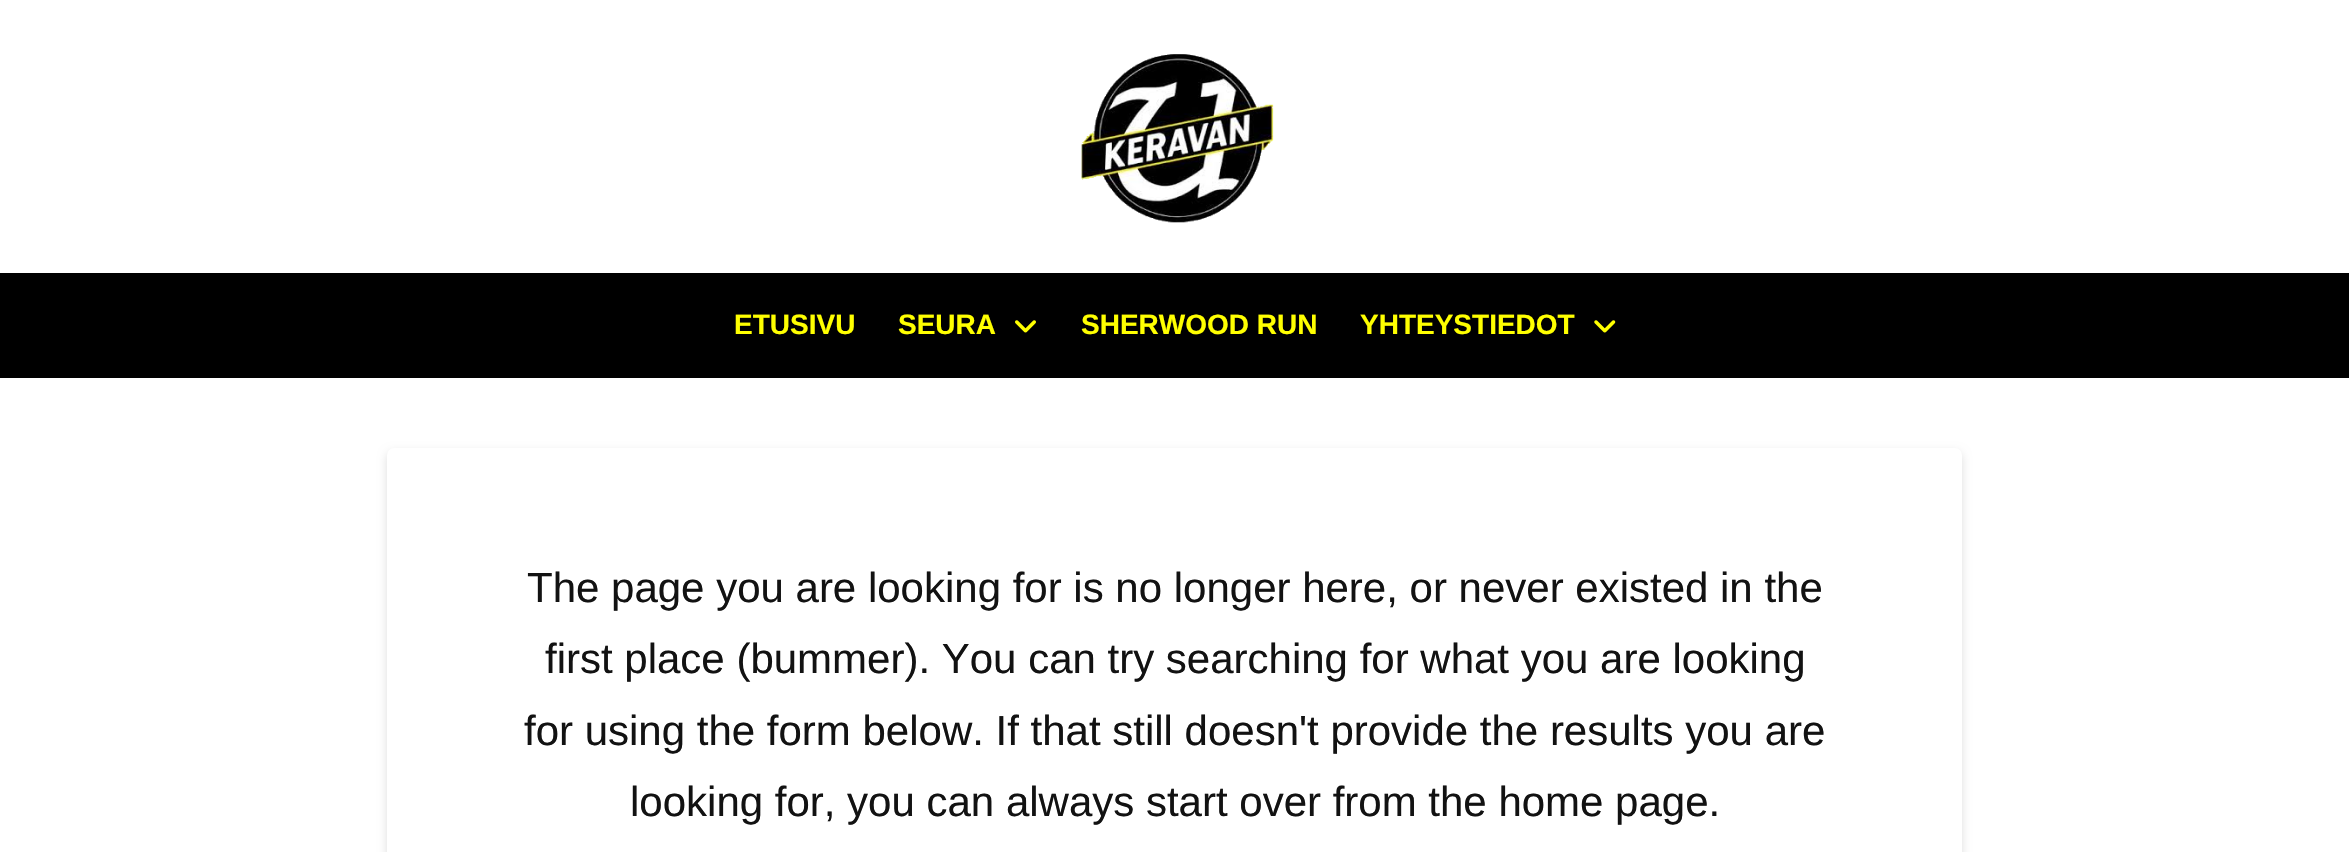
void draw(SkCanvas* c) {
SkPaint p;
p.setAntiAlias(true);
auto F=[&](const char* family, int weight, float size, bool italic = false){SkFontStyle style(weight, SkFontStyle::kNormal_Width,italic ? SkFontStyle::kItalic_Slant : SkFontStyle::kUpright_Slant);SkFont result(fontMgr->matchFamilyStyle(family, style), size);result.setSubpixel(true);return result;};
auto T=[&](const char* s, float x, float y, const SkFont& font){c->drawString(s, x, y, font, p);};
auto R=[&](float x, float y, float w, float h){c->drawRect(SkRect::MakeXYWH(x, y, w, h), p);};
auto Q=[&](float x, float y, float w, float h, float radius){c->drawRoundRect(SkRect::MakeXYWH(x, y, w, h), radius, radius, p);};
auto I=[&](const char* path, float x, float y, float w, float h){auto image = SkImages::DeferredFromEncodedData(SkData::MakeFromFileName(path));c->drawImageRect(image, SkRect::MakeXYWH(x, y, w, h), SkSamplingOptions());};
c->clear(0xffffffff);
I("1.png",1081,54,193,169);
p.setColor(0xff000000);
R(0,273,2349,105);
auto f1 = F("Liberation Sans",700,28);
p.setColor(0xffffff00);
T("ETUSIVU",734,334,f1);
T("SEURA",898,334,f1);
I("2.png",1015,320,21,13);
T("SHERWOOD RUN",1081,334,f1);
T("YHTEYSTIEDOT",1360,334,f1);
I("3.png",1594,320,22,13);
p.setColor(0x21000000);
p.setMaskFilter(SkMaskFilter::MakeBlur(kNormal_SkBlurStyle, 5));
c->drawRoundRect(SkRect::MakeXYWH(387,452,1575,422),7,7,p);
p.setMaskFilter(nullptr);
p.setColor(0xffffffff);
Q(387,448,1575,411,7);
auto f2 = F("Liberation Sans",400,42);
p.setColor(0xff121212);
T("The page you are looking for is no longer here, or never existed in the",527,602,f2);
T("first place (bummer). You can try searching for what you are looking",545,673,f2);
T("for using the form below. If that still doesn't provide the results you are",524,745,f2);
T("looking for, you can always start over from the home page.",630,816,f2);
}
